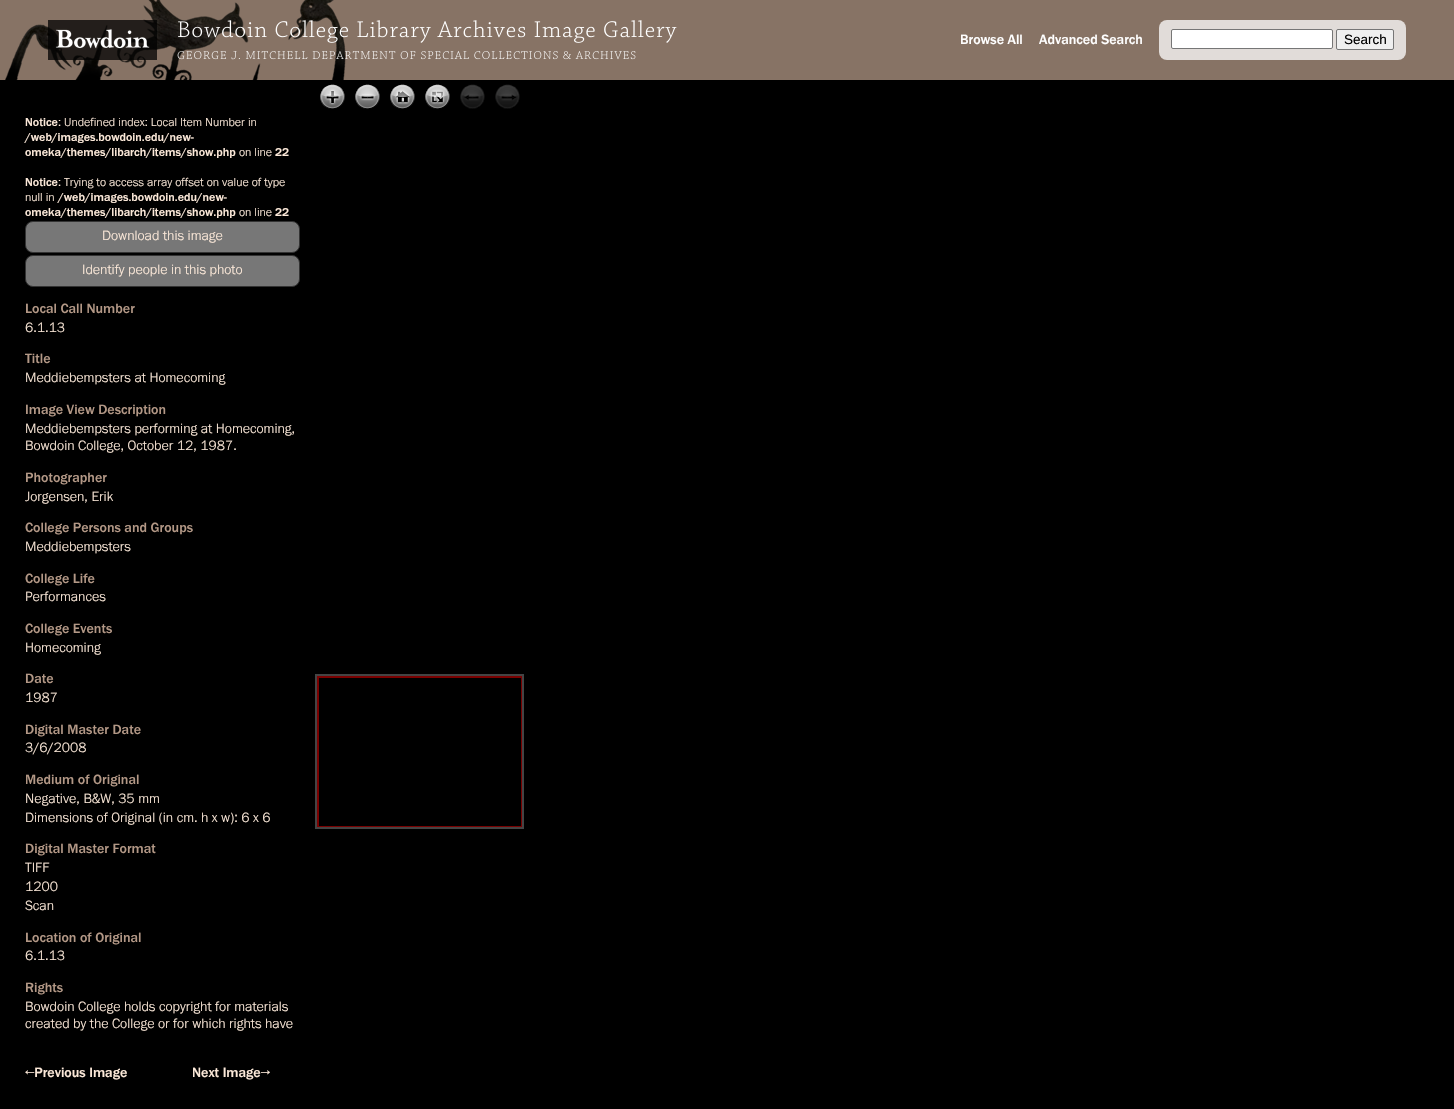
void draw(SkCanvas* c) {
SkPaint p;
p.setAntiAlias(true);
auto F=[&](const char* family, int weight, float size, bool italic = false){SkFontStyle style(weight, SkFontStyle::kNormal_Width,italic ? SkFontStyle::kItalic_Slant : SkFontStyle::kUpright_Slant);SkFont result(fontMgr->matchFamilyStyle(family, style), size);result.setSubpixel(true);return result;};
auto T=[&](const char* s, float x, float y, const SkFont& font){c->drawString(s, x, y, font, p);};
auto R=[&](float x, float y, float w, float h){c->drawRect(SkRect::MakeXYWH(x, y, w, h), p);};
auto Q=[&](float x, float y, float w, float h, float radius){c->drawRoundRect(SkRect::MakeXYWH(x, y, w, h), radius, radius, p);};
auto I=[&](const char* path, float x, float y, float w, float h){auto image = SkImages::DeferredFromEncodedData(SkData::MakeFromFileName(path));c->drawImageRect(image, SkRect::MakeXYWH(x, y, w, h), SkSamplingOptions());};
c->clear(0xff000000);
p.setColor(0xff877365);
R(0,0,1454,80);
I("1.png",5,0,341,80);
I("2.png",48,20,109,40);
I("3.png",178,20,499,23);
I("4.png",177,51,459,9);
auto f1 = F("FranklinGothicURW",400,14);
p.setColor(0xffffffff);
T("Browse All",960,44,f1);
T("Advanced Search",1039,44,f1);
p.setColor(0xffe1dcd9);
Q(1159,20,247,40,8);
p.setColor(0xffffffff);
c->drawRoundRect(SkRect::MakeXYWH(1171.5,29.5,161,19),1.5,1.5,p);
p.setStroke(true);
p.setStrokeWidth(1);
p.setColor(0xff767676);
c->drawRoundRect(SkRect::MakeXYWH(1171.5,29.5,161,19),1.5,1.5,p);
p.setStroke(false);
p.setColor(0xffefefef);
c->drawRoundRect(SkRect::MakeXYWH(1336.5,29.5,57,20),1.5,1.5,p);
p.setStroke(true);
p.setColor(0xff767676);
c->drawRoundRect(SkRect::MakeXYWH(1336.5,29.5,57,20),1.5,1.5,p);
auto f2 = F("Liberation Sans",400,13.5);
p.setStroke(false);
p.setColor(0xff000000);
T("Search",1344,44,f2);
auto f3 = F("FranklinGothicURW",400,12);
p.setColor(0xfffce9d9);
T("Notice",25,126,f3);
auto f4 = F("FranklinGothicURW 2",400,12);
T(": Undefined index: Local Item Number in",58,126,f4);
T("/web/images.bowdoin.edu/new-",25,141,f3);
T("omeka/themes/libarch/items/show.php",25,156,f3);
T("on line",239,156,f4);
T("22",275,156,f3);
T("Notice",25,186,f3);
T(": Trying to access array offset on value of type",58,186,f4);
T("null in",25,201,f4);
T("/web/images.bowdoin.edu/new-",58,201,f3);
T("omeka/themes/libarch/items/show.php",25,216,f3);
T("on line",239,216,f4);
T("22",275,216,f3);
p.setColor(0xff777777);
c->drawRoundRect(SkRect::MakeXYWH(25.5,221.5,274,31),7.5,7.5,p);
p.setStroke(true);
p.setColor(0xff333333);
c->drawRoundRect(SkRect::MakeXYWH(25.5,221.5,274,31),7.5,7.5,p);
auto f5 = F("FranklinGothicURW 2",400,14);
p.setStroke(false);
p.setColor(0xfffce9d9);
T("Download this image",102,240,f5);
p.setColor(0xff777777);
c->drawRoundRect(SkRect::MakeXYWH(25.5,255.5,274,31),7.5,7.5,p);
p.setStroke(true);
p.setColor(0xff333333);
c->drawRoundRect(SkRect::MakeXYWH(25.5,255.5,274,31),7.5,7.5,p);
p.setStroke(false);
p.setColor(0xfffce9d9);
T("Identify people in this photo",82,274,f5);
p.setColor(0xffb39886);
T("Local Call Number",25,313,f1);
p.setColor(0xfffce9d9);
T("6.1.13",25,332,f5);
p.setColor(0xffb39886);
T("Title",25,363,f1);
p.setColor(0xfffce9d9);
T("Meddiebempsters at Homecoming",25,382,f5);
p.setColor(0xffb39886);
T("Image View Description",25,414,f1);
p.setColor(0xfffce9d9);
T("Meddiebempsters performing at Homecoming,",25,433,f5);
T("Bowdoin College, October 12, 1987.",25,450,f5);
p.setColor(0xffb39886);
T("Photographer",25,482,f1);
p.setColor(0xfffce9d9);
T("Jorgensen, Erik",25,501,f5);
p.setColor(0xffb39886);
T("College Persons and Groups",25,532,f1);
p.setColor(0xfffce9d9);
T("Meddiebempsters",25,551,f5);
p.setColor(0xffb39886);
T("College Life",25,583,f1);
p.setColor(0xfffce9d9);
T("Performances",25,601,f5);
p.setColor(0xffb39886);
T("College Events",25,633,f1);
p.setColor(0xfffce9d9);
T("Homecoming",25,652,f5);
p.setColor(0xffb39886);
T("Date",25,683,f1);
p.setColor(0xfffce9d9);
T("1987",25,702,f5);
p.setColor(0xffb39886);
T("Digital Master Date",25,734,f1);
p.setColor(0xfffce9d9);
T("3/6/2008",25,752,f5);
p.setColor(0xffb39886);
T("Medium of Original",25,784,f1);
p.setColor(0xfffce9d9);
T("Negative, B&W, 35 mm",25,803,f5);
T("Dimensions of Original (in cm. h x w): 6 x 6",25,822,f5);
p.setColor(0xffb39886);
T("Digital Master Format",25,853,f1);
p.setColor(0xfffce9d9);
T("TIFF",25,872,f5);
T("1200",25,891,f5);
T("Scan",25,910,f5);
p.setColor(0xffb39886);
T("Location of Original",25,942,f1);
p.setColor(0xfffce9d9);
T("6.1.13",25,960,f5);
p.setColor(0xffb39886);
T("Rights",25,992,f1);
p.setColor(0xfffce9d9);
T("Bowdoin College holds copyright for materials",25,1011,f5);
T("created by the College or for which rights have",25,1028,f5);
I("5.png",320,84,25,25);
I("6.png",320,84,25,25);
I("7.png",355,84,25,25);
I("8.png",355,84,25,25);
I("9.png",390,84,25,25);
I("10.png",390,84,25,25);
I("11.png",425,84,25,25);
I("12.png",425,84,25,25);
I("13.png",460,84,25,25);
I("14.png",460,84,25,25);
I("15.png",495,84,25,25);
I("16.png",495,84,25,25);
p.setStroke(true);
p.setStrokeWidth(2);
p.setColor(0xff444444);
c->drawRect(SkRect::MakeXYWH(316,675,207,153),p);
c->save();
c->clipRect(SkRect::MakeXYWH(317,676,205,151));
p.setColor(0xff7a0000);
c->drawRect(SkRect::MakeXYWH(318,677,204,150),p);
c->restore();
p.setStroke(false);
p.setColor(0xfffce9d9);
T("←Previous Image",25,1077,f1);
T("Next Image→",192,1077,f1);
}
